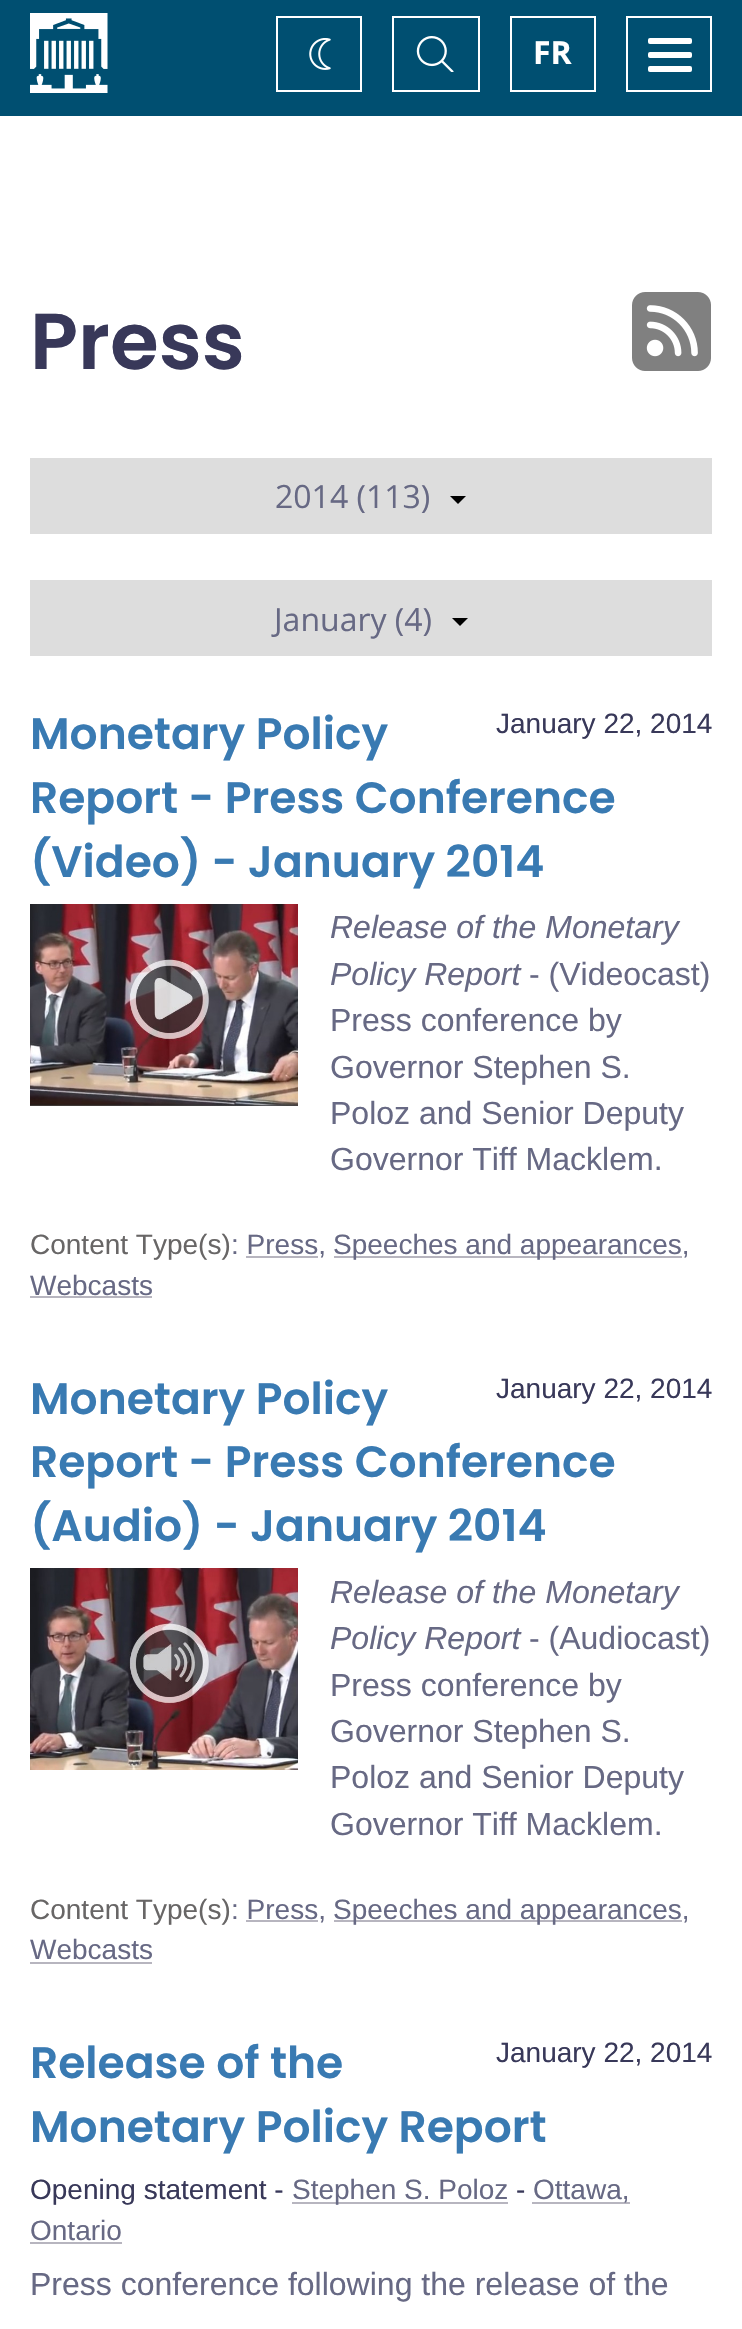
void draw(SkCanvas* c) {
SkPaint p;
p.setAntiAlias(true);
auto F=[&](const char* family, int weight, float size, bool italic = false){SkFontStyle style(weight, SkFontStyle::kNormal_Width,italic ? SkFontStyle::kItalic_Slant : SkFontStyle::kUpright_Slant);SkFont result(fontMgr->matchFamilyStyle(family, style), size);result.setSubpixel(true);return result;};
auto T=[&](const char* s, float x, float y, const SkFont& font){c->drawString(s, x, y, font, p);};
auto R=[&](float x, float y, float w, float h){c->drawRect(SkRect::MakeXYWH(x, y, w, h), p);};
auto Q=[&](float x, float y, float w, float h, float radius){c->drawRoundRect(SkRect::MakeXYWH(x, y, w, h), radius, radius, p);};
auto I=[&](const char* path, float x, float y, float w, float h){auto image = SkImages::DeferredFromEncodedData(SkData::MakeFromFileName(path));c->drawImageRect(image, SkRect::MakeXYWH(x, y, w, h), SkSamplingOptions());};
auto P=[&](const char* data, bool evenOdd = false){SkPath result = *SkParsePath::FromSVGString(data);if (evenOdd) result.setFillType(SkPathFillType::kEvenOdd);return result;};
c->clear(0xffffffff);
p.setColor(0xff004f71);
R(0,0,742,116);
I("1.png",30,13,78,80);
p.setStroke(true);
p.setStrokeWidth(2);
p.setColor(0xffffffff);
c->drawRect(SkRect::MakeXYWH(277,17,84,74),p);
I("2.png",309,38,22,32);
c->drawRect(SkRect::MakeXYWH(393,17,86,74),p);
I("3.png",416,36,38,36);
c->drawRect(SkRect::MakeXYWH(511,17,84,74),p);
auto f1 = F("Open Sans",700,32);
p.setStroke(false);
T("FR",533,64,f1);
p.setStroke(true);
c->drawRect(SkRect::MakeXYWH(627,17,84,74),p);
p.setStroke(false);
Q(648,38,44,6,2);
Q(648,52,44,6,2);
Q(648,66,44,6,2);
auto f2 = F("Poppins",600,79);
p.setColor(0xff383859);
T("Press",30,369,f2);
I("4.png",632,292,79,79);
p.setColor(0xffdddddd);
R(30,458,682,76);
auto f3 = F("Open Sans",400,32);
p.setColor(0xff676984);
T("2014 (113)",275,508,f3);
p.setColor(0xff000000);
c->drawPath(P("M450 496h16l-8 8z"),p);
p.setColor(0xffdddddd);
R(30,580,682,76);
p.setColor(0xff676984);
T("January (4)",274,631,f3);
p.setColor(0xff000000);
c->drawPath(P("M452 618h16l-8 8z"),p);
auto f4 = F("Liberation Sans",400,28);
p.setColor(0xff383859);
T("January 22, 2014",496,733,f4);
auto f5 = F("Poppins",600,44);
p.setColor(0xff397ab2);
T("Monetary Policy",30,749,f5);
T("Report - Press Conference",30,813,f5);
T("(Video) - January 2014",30,877,f5);
I("5.png",30,904,268,202);
auto f6 = F("Liberation Sans",400,32,true);
p.setColor(0xff676984);
T("Release of the Monetary",330,938,f6);
T("Policy Report",330,985,f6);
auto f7 = F("Liberation Sans",400,32);
T("- (Videocast)",529,985,f7);
T("Press conference by",330,1031,f7);
T("Governor Stephen S.",330,1078,f7);
T("Poloz and Senior Deputy",330,1124,f7);
T("Governor Tiff Macklem.",330,1170,f7);
p.setColor(0xff686666);
T("Content Type(s)",30,1254,f4);
p.setColor(0xff676984);
T(": Press,",231,1254,f4);
p.setColor(0xffb7b5bf);
R(246,1256,72,2);
R(334,1256,348,2);
p.setColor(0xff676984);
T("Speeches and appearances,",333,1254,f4);
T("Webcasts",30,1295,f4);
p.setColor(0xffb7b5bf);
R(30,1296,122,2);
p.setColor(0xff383859);
T("January 22, 2014",496,1398,f4);
p.setColor(0xff397ab2);
T("Monetary Policy",30,1414,f5);
T("Report - Press Conference",30,1477,f5);
T("(Audio) - January 2014",30,1541,f5);
I("6.png",30,1568,268,202);
p.setColor(0xff676984);
T("Release of the Monetary",330,1603,f6);
T("Policy Report",330,1649,f6);
T("- (Audiocast)",529,1649,f7);
T("Press conference by",330,1696,f7);
T("Governor Stephen S.",330,1742,f7);
T("Poloz and Senior Deputy",330,1788,f7);
T("Governor Tiff Macklem.",330,1835,f7);
p.setColor(0xff686666);
T("Content Type(s)",30,1919,f4);
p.setColor(0xff676984);
T(": Press,",231,1919,f4);
p.setColor(0xffb7b5bf);
R(246,1920,72,2);
R(334,1920,348,2);
p.setColor(0xff676984);
T("Speeches and appearances,",333,1919,f4);
T("Webcasts",30,1959,f4);
p.setColor(0xffb7b5bf);
R(30,1962,122,2);
p.setColor(0xff397ab2);
T("Release of the",30,2078,f5);
T("Monetary Policy Report",30,2142,f5);
p.setColor(0xff383859);
T("January 22, 2014",496,2062,f4);
T("Opening statement -",30,2199,f4);
p.setColor(0xffb7b5bf);
R(292,2202,216,2);
p.setColor(0xff676984);
T("Stephen S. Poloz",292,2199,f4);
p.setColor(0xff383859);
T("-",516,2199,f4);
p.setColor(0xffb7b5bf);
R(532,2202,98,2);
p.setColor(0xff676984);
T("Ottawa,",533,2199,f4);
T("Ontario",30,2240,f4);
p.setColor(0xffb7b5bf);
R(30,2242,92,2);
p.setColor(0xff676984);
T("Press conference following the release of the",30,2295,f7);
}
